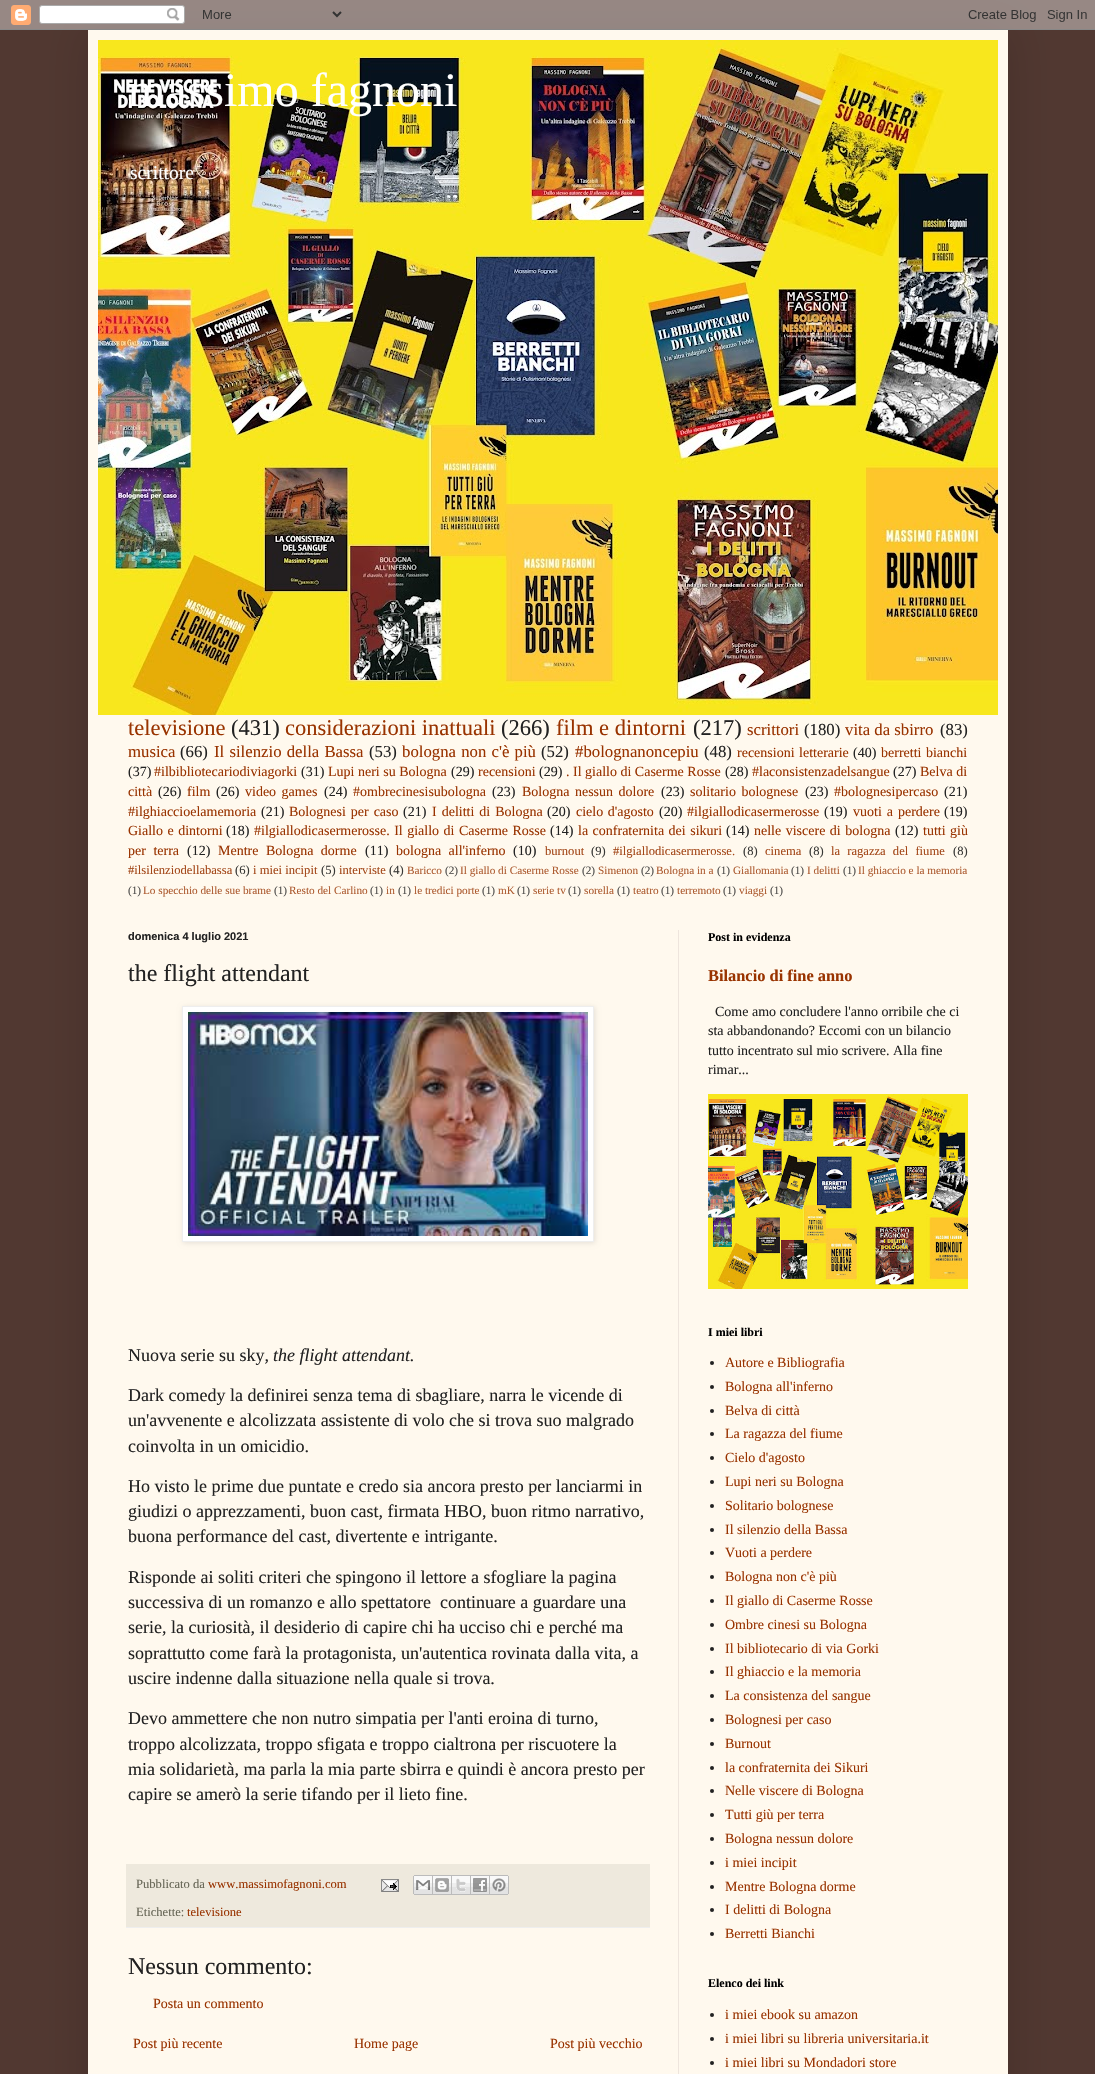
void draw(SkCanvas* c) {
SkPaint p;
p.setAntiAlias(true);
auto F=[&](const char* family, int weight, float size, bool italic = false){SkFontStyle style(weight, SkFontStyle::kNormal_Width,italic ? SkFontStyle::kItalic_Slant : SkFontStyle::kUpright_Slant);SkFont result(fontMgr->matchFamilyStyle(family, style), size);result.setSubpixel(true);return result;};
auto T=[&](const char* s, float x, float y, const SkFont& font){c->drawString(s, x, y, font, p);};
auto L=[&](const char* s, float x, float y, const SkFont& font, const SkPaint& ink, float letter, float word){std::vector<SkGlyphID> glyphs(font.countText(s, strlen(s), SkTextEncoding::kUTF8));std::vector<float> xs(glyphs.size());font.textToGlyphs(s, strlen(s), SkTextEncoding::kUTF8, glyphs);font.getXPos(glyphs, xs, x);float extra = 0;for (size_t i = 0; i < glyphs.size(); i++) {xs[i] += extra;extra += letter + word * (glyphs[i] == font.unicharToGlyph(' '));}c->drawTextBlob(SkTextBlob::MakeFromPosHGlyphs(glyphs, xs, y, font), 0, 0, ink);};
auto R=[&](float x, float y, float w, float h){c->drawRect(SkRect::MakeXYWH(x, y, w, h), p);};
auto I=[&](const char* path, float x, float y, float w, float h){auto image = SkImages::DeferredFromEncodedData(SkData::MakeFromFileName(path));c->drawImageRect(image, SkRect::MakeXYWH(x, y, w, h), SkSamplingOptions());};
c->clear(0xff513831);
p.setColor(0x26000000);
p.setMaskFilter(SkMaskFilter::MakeBlur(kNormal_SkBlurStyle, 20));
c->drawRect(SkRect::MakeXYWH(88,30,920,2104),p);
p.setMaskFilter(nullptr);
I("1.png",0,0,1095,30);
p.setColor(0xfffff9ee);
R(88,30,920,2044);
I("2.png",98,40,900,675);
auto f1 = F("Liberation Serif",400,48);
p.setColor(0xffffffff);
T("massimo fagnoni",128,106,f1);
auto f2 = F("Liberation Serif",400,19.5);
T("scrittore",130,179,f2);
auto f3 = F("Liberation Serif",400,22.5);
p.setColor(0xff993300);
T("televisione",128,735,f3);
p.setColor(0xff222222);
T("(431)",231,735,f3);
p.setColor(0xff993300);
T("considerazioni inattuali",285,735,f3);
p.setColor(0xff222222);
T("(266)",501,735,f3);
p.setColor(0xff993300);
T("film e dintorni",556,735,f3);
p.setColor(0xff222222);
T("(217)",693,735,f3);
auto f4 = F("Liberation Serif",400,16.75);
p.setColor(0xff993300);
T("scrittori",747,735,f4);
p.setColor(0xff222222);
T("(180)",804,735,f4);
p.setColor(0xff993300);
T("vita da sbirro",845,735,f4);
p.setColor(0xff222222);
T("(83)",940,735,f4);
p.setColor(0xff993300);
T("musica",128,757,f4);
p.setColor(0xff222222);
T("(66)",180,757,f4);
p.setColor(0xff993300);
L("Il silenzio della Bassa",214,757,f4,p,0,1);
p.setColor(0xff222222);
T("(53)",369,757,f4);
p.setColor(0xff993300);
L("bologna non c'è più",402,757,f4,p,0,1);
p.setColor(0xff222222);
T("(52)",541,757,f4);
p.setColor(0xff993300);
T("#bolognanoncepiu",575,757,f4);
p.setColor(0xff222222);
T("(48)",704,757,f4);
auto f5 = F("Liberation Serif",400,14);
p.setColor(0xff993300);
L("recensioni letterarie",737,757,f5,p,0,1);
p.setColor(0xff222222);
T("(40)",853,757,f5);
p.setColor(0xff993300);
L("berretti bianchi",881,757,f5,p,0,1);
p.setColor(0xff222222);
T("(37)",128,776,f5);
p.setColor(0xff993300);
T("#ilbibliotecariodiviagorki",154,776,f5);
p.setColor(0xff222222);
T("(31)",301,776,f5);
p.setColor(0xff993300);
T("Lupi neri su Bologna",328,776,f5);
p.setColor(0xff222222);
T("(29)",451,776,f5);
p.setColor(0xff993300);
T("recensioni",478,776,f5);
p.setColor(0xff222222);
T("(29)",539,776,f5);
p.setColor(0xff993300);
T(". Il giallo di Caserme Rosse",566,776,f5);
p.setColor(0xff222222);
T("(28)",725,776,f5);
p.setColor(0xff993300);
T("#laconsistenzadelsangue",752,776,f5);
p.setColor(0xff222222);
T("(27)",893,776,f5);
p.setColor(0xff993300);
T("Belva di",920,776,f5);
T("città",128,796,f5);
p.setColor(0xff222222);
T("(26)",158,796,f5);
p.setColor(0xff993300);
T("film",187,796,f5);
p.setColor(0xff222222);
T("(26)",216,796,f5);
p.setColor(0xff993300);
L("video games",245,796,f5,p,0,2);
p.setColor(0xff222222);
T("(24)",324,796,f5);
p.setColor(0xff993300);
T("#ombrecinesisubologna",353,796,f5);
p.setColor(0xff222222);
T("(23)",492,796,f5);
p.setColor(0xff993300);
L("Bologna nessun dolore",522,796,f5,p,0,2);
p.setColor(0xff222222);
T("(23)",661,796,f5);
p.setColor(0xff993300);
L("solitario bolognese",690,796,f5,p,0,2);
p.setColor(0xff222222);
T("(23)",805,796,f5);
p.setColor(0xff993300);
T("#bolognesipercaso",834,796,f5);
p.setColor(0xff222222);
T("(21)",944,796,f5);
p.setColor(0xff993300);
T("#ilghiaccioelamemoria",128,816,f5);
p.setColor(0xff222222);
T("(21)",261,816,f5);
p.setColor(0xff993300);
L("Bolognesi per caso",289,816,f5,p,0,1.5);
p.setColor(0xff222222);
T("(21)",403,816,f5);
p.setColor(0xff993300);
L("I delitti di Bologna",432,816,f5,p,0,1.5);
p.setColor(0xff222222);
T("(20)",547,816,f5);
p.setColor(0xff993300);
L("cielo d'agosto",576,816,f5,p,0,1);
p.setColor(0xff222222);
T("(20)",659,816,f5);
p.setColor(0xff993300);
T("#ilgiallodicasermerosse",687,816,f5);
p.setColor(0xff222222);
T("(19)",824,816,f5);
p.setColor(0xff993300);
L("vuoti a perdere",853,816,f5,p,0,1.5);
p.setColor(0xff222222);
T("(19)",944,816,f5);
p.setColor(0xff993300);
L("Giallo e dintorni",128,835,f5,p,0,1);
p.setColor(0xff222222);
T("(18)",226,835,f5);
p.setColor(0xff993300);
L("#ilgiallodicasermerosse. Il giallo di Caserme Rosse",254,835,f5,p,0,1);
p.setColor(0xff222222);
T("(14)",550,835,f5);
p.setColor(0xff993300);
L("la confraternita dei sikuri",578,835,f5,p,0,1);
p.setColor(0xff222222);
T("(14)",726,835,f5);
p.setColor(0xff993300);
L("nelle viscere di bologna",754,835,f5,p,0,1);
p.setColor(0xff222222);
T("(12)",895,835,f5);
p.setColor(0xff993300);
L("tutti giù",923,835,f5,p,0,1);
L("per terra",128,855,f5,p,0,4);
p.setColor(0xff222222);
T("(12)",187,855,f5);
p.setColor(0xff993300);
L("Mentre Bologna dorme",218,855,f5,p,0,4);
p.setColor(0xff222222);
T("(11)",365,855,f5);
p.setColor(0xff993300);
L("bologna all'inferno",396,855,f5,p,0,4);
p.setColor(0xff222222);
T("(10)",513,855,f5);
auto f6 = F("Liberation Serif",400,12.6);
p.setColor(0xffa34718);
T("burnout",545,855,f6);
p.setColor(0xff383836);
T("(9)",591,855,f6);
p.setColor(0xffa34718);
T("#ilgiallodicasermerosse.",613,855,f6);
p.setColor(0xff383836);
T("(8)",743,855,f6);
p.setColor(0xffa34718);
T("cinema",765,855,f6);
p.setColor(0xff383836);
T("(8)",809,855,f6);
p.setColor(0xffa34718);
L("la ragazza del fiume",831,855,f6,p,0,4);
p.setColor(0xff383836);
T("(8)",953,855,f6);
p.setColor(0xffa34718);
T("#ilsilenziodellabassa",128,874,f6);
p.setColor(0xff383836);
T("(6)",235,874,f6);
p.setColor(0xffa34718);
T("i miei incipit",253,874,f6);
p.setColor(0xff383836);
T("(5)",321,874,f6);
p.setColor(0xffa34718);
T("interviste",339,874,f6);
p.setColor(0xff383836);
T("(4)",389,874,f6);
auto f7 = F("Liberation Serif",400,11.25);
p.setColor(0xffad5b30);
T("Baricco",407,874,f7);
p.setColor(0xff4e4d4b);
T("(2)",445,874,f7);
p.setColor(0xffad5b30);
T("Il giallo di Caserme Rosse",460,874,f7);
p.setColor(0xff4e4d4b);
T("(2)",582,874,f7);
p.setColor(0xffad5b30);
T("Simenon",598,874,f7);
p.setColor(0xff4e4d4b);
T("(2)",641,874,f7);
p.setColor(0xffad5b30);
T("Bologna in a",656,874,f7);
p.setColor(0xff4e4d4b);
T("(1)",717,874,f7);
p.setColor(0xffad5b30);
T("Giallomania",733,874,f7);
p.setColor(0xff4e4d4b);
T("(1)",791,874,f7);
p.setColor(0xffad5b30);
T("I delitti",807,874,f7);
p.setColor(0xff4e4d4b);
T("(1)",843,874,f7);
p.setColor(0xffad5b30);
T("Il ghiaccio e la memoria",858,874,f7);
p.setColor(0xff4e4d4b);
T("(1)",128,894,f7);
p.setColor(0xffad5b30);
T("Lo specchio delle sue brame",143,894,f7);
p.setColor(0xff4e4d4b);
T("(1)",274,894,f7);
p.setColor(0xffad5b30);
T("Resto del Carlino",289,894,f7);
p.setColor(0xff4e4d4b);
T("(1)",370,894,f7);
p.setColor(0xffad5b30);
T("in",386,894,f7);
p.setColor(0xff4e4d4b);
T("(1)",398,894,f7);
p.setColor(0xffad5b30);
T("le tredici porte",414,894,f7);
p.setColor(0xff4e4d4b);
T("(1)",482,894,f7);
p.setColor(0xffad5b30);
T("mK",498,894,f7);
p.setColor(0xff4e4d4b);
T("(1)",517,894,f7);
p.setColor(0xffad5b30);
T("serie tv",533,894,f7);
p.setColor(0xff4e4d4b);
T("(1)",568,894,f7);
p.setColor(0xffad5b30);
T("sorella",584,894,f7);
p.setColor(0xff4e4d4b);
T("(1)",617,894,f7);
p.setColor(0xffad5b30);
T("teatro",633,894,f7);
p.setColor(0xff4e4d4b);
T("(1)",661,894,f7);
p.setColor(0xffad5b30);
T("terremoto",677,894,f7);
p.setColor(0xff4e4d4b);
T("(1)",723,894,f7);
p.setColor(0xffad5b30);
T("viaggi",739,894,f7);
p.setColor(0xff4e4d4b);
T("(1)",770,894,f7);
p.setColor(0xffeee5dd);
R(678,930,1,1144);
auto f8 = F("Liberation Sans",700,11);
p.setColor(0xff222222);
T("domenica 4 luglio 2021",128,940,f8);
auto f9 = F("Liberation Serif",400,24);
T("the flight attendant",128,981,f9);
p.setColor(0x1a000000);
p.setMaskFilter(SkMaskFilter::MakeBlur(kNormal_SkBlurStyle, 2.5));
c->drawRect(SkRect::MakeXYWH(183,1007,412,236),p);
p.setMaskFilter(nullptr);
p.setColor(0xffffffff);
c->drawRect(SkRect::MakeXYWH(182.5,1006.5,411,235),p);
p.setStroke(true);
p.setStrokeWidth(1);
p.setColor(0xffeeeeee);
c->drawRect(SkRect::MakeXYWH(182.5,1006.5,411,235),p);
I("3.png",188,1012,400,224);
auto f10 = F("Liberation Serif",400,18);
p.setStroke(false);
p.setColor(0xff222222);
T("Nuova serie su sky,",128,1361,f10);
auto f11 = F("Liberation Serif",400,18,true);
T("the flight attendant.",273,1361,f11);
T("Dark comedy la definirei senza tema di sbagliare, narra le vicende di",128,1401,f10);
T("un'avvenente e alcolizzata assistente di volo che si trova suo malgrado",128,1426,f10);
T("coinvolta in un omicidio.",128,1452,f10);
T("Ho visto le prime due puntate e credo sia ancora presto per lanciarmi in",128,1492,f10);
T("giudizi o apprezzamenti, buon cast, firmata HBO, buon ritmo narrativo,",128,1517,f10);
T("buona performance del cast, divertente e intrigante.",128,1542,f10);
T("Risponde ai soliti criteri che spingono il lettore a sfogliare la pagina",128,1583,f10);
T("successiva di un romanzo e allo spettatore  continuare a guardare una",128,1608,f10);
T("serie, la curiosità, il desiderio di capire chi ha ucciso chi e perché ma",128,1633,f10);
T("soprattutto come farà la protagonista, un'autentica rovinata dalla vita, a",128,1659,f10);
T("uscire indenne dalla situazione nella quale si trova.",128,1684,f10);
T("Devo ammettere che non nutro simpatia per l'anti eroina di turno,",128,1724,f10);
T("troppo alcolizzata, troppo sfigata e troppo cialtrona per riscuotere la",128,1750,f10);
T("mia solidarietà, ma parla la mia parte sbirra e quindi è ancora presto per",128,1775,f10);
T("capire se amerò la serie tifando per il lieto fine.",128,1800,f10);
p.setColor(0xffeee9dd);
R(126,1864,524,63);
p.setColor(0xffeeeeee);
R(126,1927,524,1);
p.setColor(0xff666555);
T("Pubblicato da",136,1888,f6);
p.setColor(0xff993300);
T("www.massimofagnoni.com",208,1888,f6);
I("4.png",381,1879,18,13);
I("5.png",413,1875,20,20);
I("6.png",433,1875,19,20);
I("7.png",452,1875,19,20);
I("8.png",471,1875,19,20);
I("9.png",490,1875,19,20);
p.setColor(0xff666555);
T("Etichette:",136,1916,f6);
p.setColor(0xff993300);
T("televisione",187,1916,f6);
p.setColor(0xff222222);
T("Nessun commento:",128,1974,f9);
p.setColor(0xff993300);
T("Posta un commento",153,2008,f5);
T("Post più recente",133,2048,f5);
T("Home page",354,2048,f5);
T("Post più vecchio",550,2048,f5);
auto f12 = F("Liberation Serif",700,12);
p.setColor(0xff000000);
T("Post in evidenza",708,941,f12);
auto f13 = F("Liberation Serif",700,16.4);
p.setColor(0xff993300);
T("Bilancio di fine anno",708,981,f13);
p.setColor(0xff222222);
T("Come amo concludere l'anno orribile che ci",715,1016,f5);
T("sta abbandonando? Eccomi con un bilancio",708,1035,f5);
T("tutto incentrato sul mio scrivere. Alla fine",708,1055,f5);
T("rimar...",708,1074,f5);
I("10.png",708,1094,260,195);
p.setColor(0xff000000);
T("I miei libri",708,1336,f12);
p.setColor(0xff222222);
c->drawCircle(712,1363,2,p);
p.setColor(0xff993300);
T("Autore e Bibliografia",725,1367,f5);
p.setColor(0xff222222);
c->drawCircle(712,1387,2,p);
p.setColor(0xff993300);
T("Bologna all'inferno",725,1391,f5);
p.setColor(0xff222222);
c->drawCircle(712,1411,2,p);
p.setColor(0xff993300);
T("Belva di città",725,1415,f5);
p.setColor(0xff222222);
c->drawCircle(712,1434,2,p);
p.setColor(0xff993300);
T("La ragazza del fiume",725,1438,f5);
p.setColor(0xff222222);
c->drawCircle(712,1458,2,p);
p.setColor(0xff993300);
T("Cielo d'agosto",725,1462,f5);
p.setColor(0xff222222);
c->drawCircle(712,1482,2,p);
p.setColor(0xff993300);
T("Lupi neri su Bologna",725,1486,f5);
p.setColor(0xff222222);
c->drawCircle(712,1506,2,p);
p.setColor(0xff993300);
T("Solitario bolognese",725,1510,f5);
p.setColor(0xff222222);
c->drawCircle(712,1530,2,p);
p.setColor(0xff993300);
T("Il silenzio della Bassa",725,1534,f5);
p.setColor(0xff222222);
c->drawCircle(712,1553,2,p);
p.setColor(0xff993300);
T("Vuoti a perdere",725,1557,f5);
p.setColor(0xff222222);
c->drawCircle(712,1577,2,p);
p.setColor(0xff993300);
T("Bologna non c'è più",725,1581,f5);
p.setColor(0xff222222);
c->drawCircle(712,1601,2,p);
p.setColor(0xff993300);
T("Il giallo di Caserme Rosse",725,1605,f5);
p.setColor(0xff222222);
c->drawCircle(712,1625,2,p);
p.setColor(0xff993300);
T("Ombre cinesi su Bologna",725,1629,f5);
p.setColor(0xff222222);
c->drawCircle(712,1649,2,p);
p.setColor(0xff993300);
T("Il bibliotecario di via Gorki",725,1653,f5);
p.setColor(0xff222222);
c->drawCircle(712,1672,2,p);
p.setColor(0xff993300);
T("Il ghiaccio e la memoria",725,1676,f5);
p.setColor(0xff222222);
c->drawCircle(712,1696,2,p);
p.setColor(0xff993300);
T("La consistenza del sangue",725,1700,f5);
p.setColor(0xff222222);
c->drawCircle(712,1720,2,p);
p.setColor(0xff993300);
T("Bolognesi per caso",725,1724,f5);
p.setColor(0xff222222);
c->drawCircle(712,1744,2,p);
p.setColor(0xff993300);
T("Burnout",725,1748,f5);
p.setColor(0xff222222);
c->drawCircle(712,1768,2,p);
p.setColor(0xff993300);
T("la confraternita dei Sikuri",725,1772,f5);
p.setColor(0xff222222);
c->drawCircle(712,1791,2,p);
p.setColor(0xff993300);
T("Nelle viscere di Bologna",725,1795,f5);
p.setColor(0xff222222);
c->drawCircle(712,1815,2,p);
p.setColor(0xff993300);
T("Tutti giù per terra",725,1819,f5);
p.setColor(0xff222222);
c->drawCircle(712,1839,2,p);
p.setColor(0xff993300);
T("Bologna nessun dolore",725,1843,f5);
p.setColor(0xff222222);
c->drawCircle(712,1863,2,p);
p.setColor(0xff993300);
T("i miei incipit",725,1867,f5);
p.setColor(0xff222222);
c->drawCircle(712,1887,2,p);
p.setColor(0xff993300);
T("Mentre Bologna dorme",725,1891,f5);
p.setColor(0xff222222);
c->drawCircle(712,1910,2,p);
p.setColor(0xff993300);
T("I delitti di Bologna",725,1914,f5);
p.setColor(0xff222222);
c->drawCircle(712,1934,2,p);
p.setColor(0xff993300);
T("Berretti Bianchi",725,1938,f5);
p.setColor(0xff000000);
T("Elenco dei link",708,1987,f12);
p.setColor(0xff222222);
c->drawCircle(712,2015,2,p);
p.setColor(0xff993300);
T("i miei ebook su amazon",725,2019,f5);
p.setColor(0xff222222);
c->drawCircle(712,2039,2,p);
p.setColor(0xff993300);
T("i miei libri su libreria universitaria.it",725,2043,f5);
p.setColor(0xff222222);
c->drawCircle(712,2063,2,p);
p.setColor(0xff993300);
T("i miei libri su Mondadori store",725,2067,f5);
}
